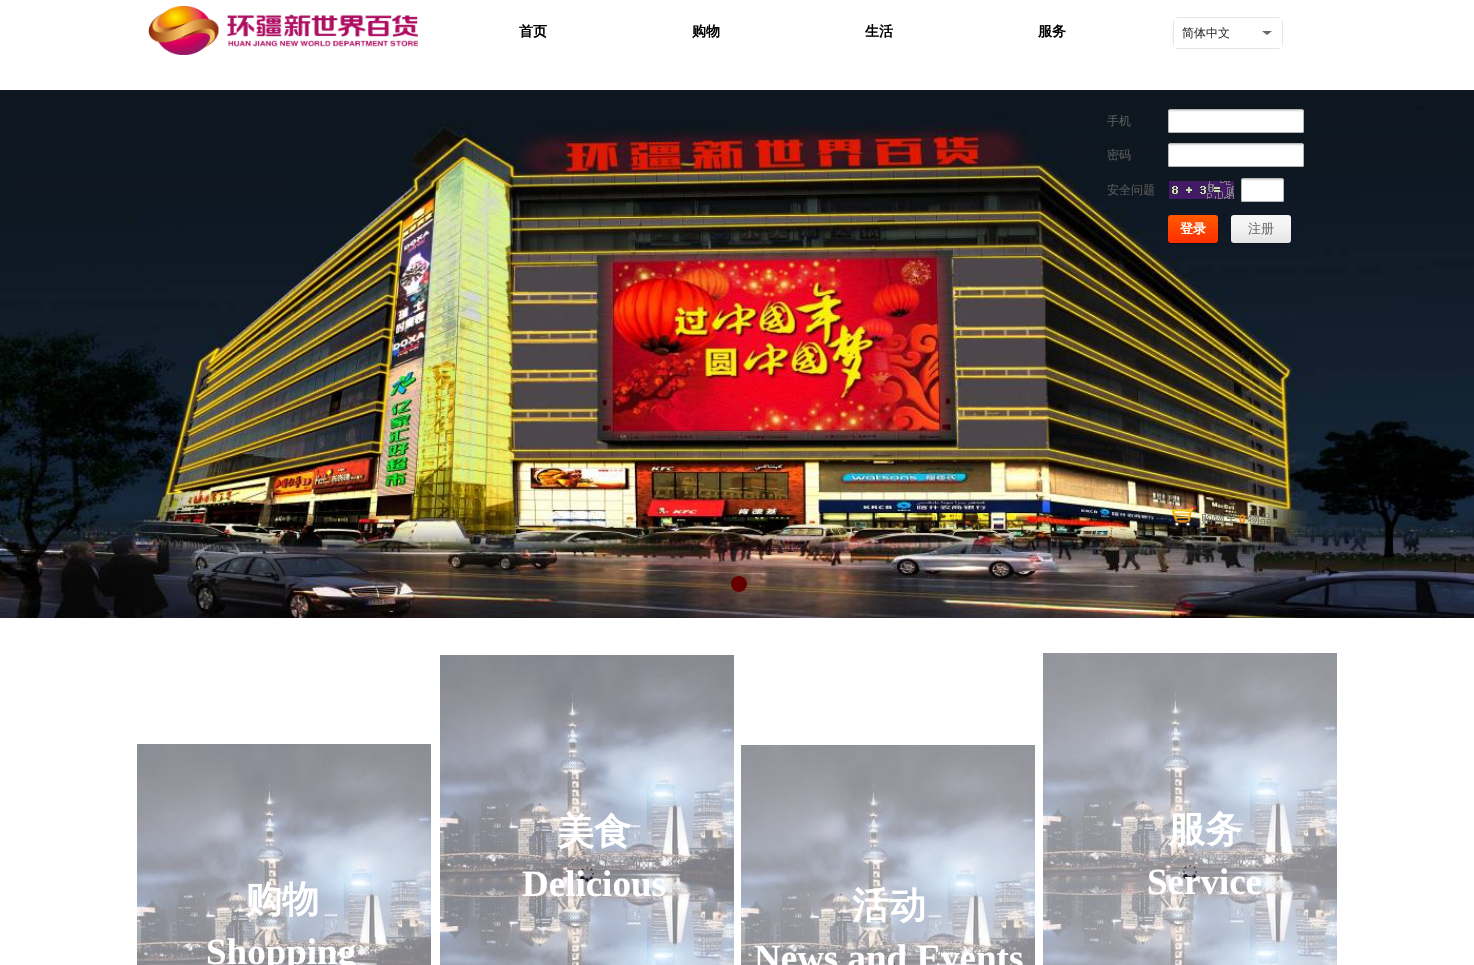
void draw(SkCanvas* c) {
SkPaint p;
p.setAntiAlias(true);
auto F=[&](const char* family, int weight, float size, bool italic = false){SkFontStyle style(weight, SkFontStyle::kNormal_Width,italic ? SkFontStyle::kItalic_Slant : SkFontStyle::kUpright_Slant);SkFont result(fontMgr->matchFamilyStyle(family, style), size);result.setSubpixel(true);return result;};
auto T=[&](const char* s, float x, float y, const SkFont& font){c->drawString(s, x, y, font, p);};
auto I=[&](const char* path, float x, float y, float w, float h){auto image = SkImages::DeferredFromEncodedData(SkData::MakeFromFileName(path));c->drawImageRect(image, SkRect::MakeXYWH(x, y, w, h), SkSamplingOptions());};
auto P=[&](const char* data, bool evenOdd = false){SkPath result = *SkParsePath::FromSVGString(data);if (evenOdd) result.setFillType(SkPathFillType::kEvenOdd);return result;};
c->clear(0xffffffff);
I("1.png",148,6,270,49);
auto f1 = F("WenQuanYi Zen Hei",700,14);
p.setColor(0xff000000);
T("首页",519,36,f1);
T("购物",692,36,f1);
T("生活",865,36,f1);
T("服务",1038,36,f1);
p.setColor(0xffe5e5e5);
c->drawPath(P("M1173 22c0 4-1 22 1 25v-28zm5-5l-3 1h106l-3-1zm105 5l-1-3v28c2-3 1-21 1-25zm-5 27l3-1h-106c1 1 2 1 3 1z",true),p);
auto f2 = F("WenQuanYi Zen Hei",500,12);
p.setColor(0xff333333);
T("简体中文",1182,37,f2);
I("2.png",1262,31,10,4);
I("3.png",0,90,1474,528);
p.setColor(0xff660000);
c->drawCircle(739,584,7,p);
p.setStroke(true);
p.setStrokeWidth(2);
c->drawCircle(739,584,7,p);
p.setStroke(false);
p.setColor(0xff5a5a5a);
T("手机",1107,125,f2);
I("4.png",1168,110,136,23);
p.setStroke(true);
p.setStrokeWidth(1);
p.setColor(0xffb5b5b5);
c->drawRoundRect(SkRect::MakeXYWH(1168.5,109.5,135,23),1.5,1.5,p);
p.setStroke(false);
p.setColor(0xff5a5a5a);
T("密码",1107,159,f2);
I("5.png",1168,144,136,23);
p.setStroke(true);
p.setColor(0xffb5b5b5);
c->drawRoundRect(SkRect::MakeXYWH(1168.5,143.5,135,23),1.5,1.5,p);
p.setStroke(false);
p.setColor(0xff5a5a5a);
T("安全问题",1107,194,f2);
I("6.png",1169,181,65,18);
I("7.png",1241,179,43,23);
p.setStroke(true);
p.setColor(0xffb5b5b5);
c->drawRoundRect(SkRect::MakeXYWH(1241.5,178.5,42,23),1.5,1.5,p);
p.setStroke(false);
p.setColor(0x66000000);
p.setMaskFilter(SkMaskFilter::MakeBlur(kNormal_SkBlurStyle, .5));
c->drawRoundRect(SkRect::MakeXYWH(1168,216,50,28),3,3,p);
p.setMaskFilter(nullptr);
I("8.png",1168,215,50,28);
auto f3 = F("WenQuanYi Zen Hei",700,13);
p.setColor(0xffffffff);
T("登录",1180,233,f3);
p.setColor(0x66000000);
p.setMaskFilter(SkMaskFilter::MakeBlur(kNormal_SkBlurStyle, .5));
c->drawRoundRect(SkRect::MakeXYWH(1231,216,60,28),3,3,p);
p.setMaskFilter(nullptr);
I("9.png",1231,215,60,28);
auto f4 = F("WenQuanYi Zen Hei",500,13);
p.setColor(0xff6f6f6f);
T("注册",1248,233,f4);
I("10.png",1171,506,26,22);
T("购物车",1201,523,f2);
auto f5 = F("Liberation Sans",700,12);
p.setColor(0xfffe8300);
T("0",1239,523,f5);
p.setColor(0xff6f6f6f);
T("物品",1248,523,f2);
I("11.png",137,744,294,221);
I("12.png",440,655,294,310);
I("13.png",741,745,294,220);
I("14.png",1043,653,294,312);
auto f6 = F("WenQuanYi Zen Hei",700,37);
p.setColor(0xffffffff);
T("美食",557,844,f6);
auto f7 = F("Liberation Serif",700,37);
T("Delicious",522,896,f7);
T("服务",1168,842,f6);
T("Service",1147,894,f7);
T("购物",245,912,f6);
T("Shopping",206,964,f7);
T("活动",852,918,f6);
T("News and Events",754,970,f7);
}
